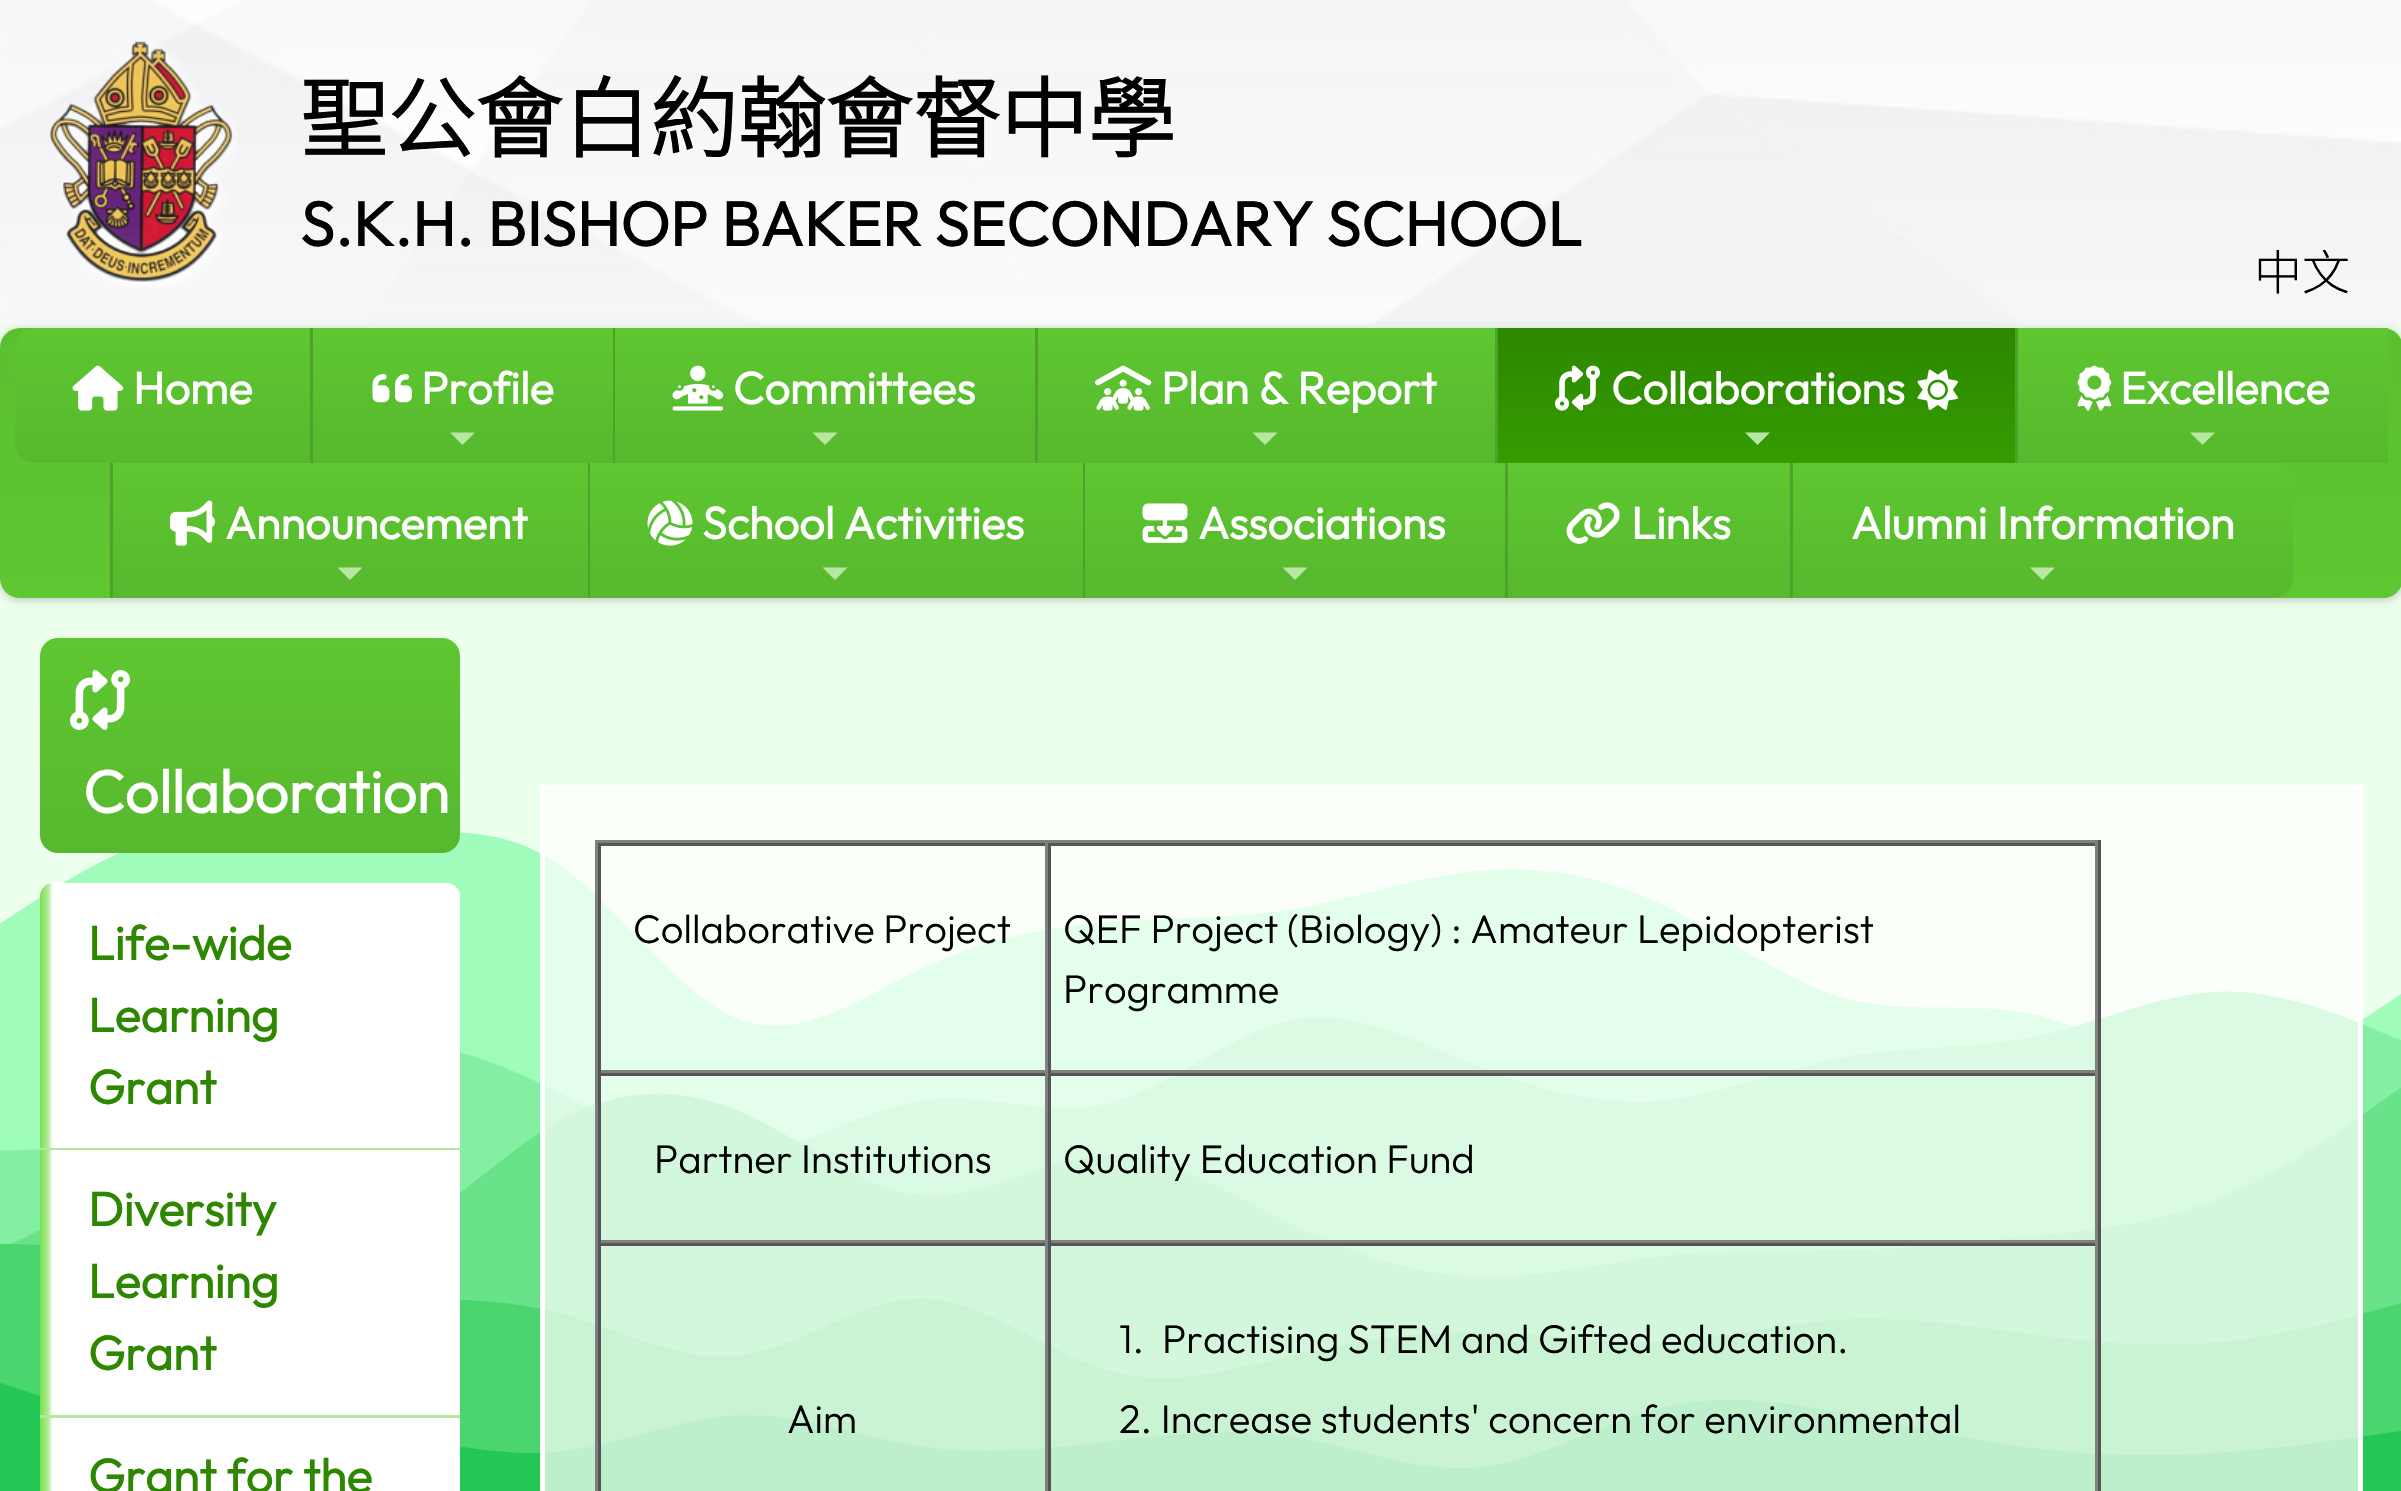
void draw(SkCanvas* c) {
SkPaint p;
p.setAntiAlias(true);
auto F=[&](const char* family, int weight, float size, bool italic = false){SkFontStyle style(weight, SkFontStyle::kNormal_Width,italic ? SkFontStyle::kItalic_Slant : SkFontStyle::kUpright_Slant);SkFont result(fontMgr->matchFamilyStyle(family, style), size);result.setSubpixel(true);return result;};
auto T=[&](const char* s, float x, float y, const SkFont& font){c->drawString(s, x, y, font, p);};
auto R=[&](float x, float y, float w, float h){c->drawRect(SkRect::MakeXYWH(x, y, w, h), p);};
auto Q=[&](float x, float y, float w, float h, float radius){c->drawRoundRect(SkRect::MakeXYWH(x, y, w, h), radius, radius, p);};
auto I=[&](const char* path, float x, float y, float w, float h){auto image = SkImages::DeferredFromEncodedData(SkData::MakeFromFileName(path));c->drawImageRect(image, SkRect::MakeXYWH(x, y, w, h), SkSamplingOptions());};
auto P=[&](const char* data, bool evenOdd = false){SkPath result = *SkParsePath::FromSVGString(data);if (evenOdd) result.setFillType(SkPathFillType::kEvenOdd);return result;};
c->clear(0xffffffff);
I("1.png",0,325,2401,1166);
I("2.png",0,0,2401,325);
I("3.png",49,41,188,246);
auto f1 = F("Noto Sans HK",700,87.5);
p.setColor(0xff000000);
T("聖公會白約翰會督中學",300,151,f1);
auto f2 = F("Outfit",700,62.5);
T("S.K.H. BISHOP BAKER SECONDARY SCHOOL",300,246,f2);
auto f3 = F("Noto Sans HK",100,48);
T("中文",2254,290,f3);
p.setColor(0x33000000);
p.setMaskFilter(SkMaskFilter::MakeBlur(kNormal_SkBlurStyle, 5));
c->drawRoundRect(SkRect::MakeXYWH(0,330,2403,270),20,20,p);
p.setMaskFilter(nullptr);
{
const SkColor colors[] = {0xff5bc030,0xff5ec731};
const float stops[] = {0,1};
const SkPoint ends[] = {{1201,327}, {1201,598}};
p.setShader(SkGradientShader::MakeLinear(ends, colors, stops, 2, SkTileMode::kClamp));
p.setAlpha(255);
}
Q(0,328,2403,270,20);
{
const SkColor colors[] = {0xff5ec731,0xff57b82e};
const float stops[] = {0,1};
const SkPoint ends[] = {{163,328}, {163,463}};
p.setShader(SkGradientShader::MakeLinear(ends, colors, stops, 2, SkTileMode::kClamp));
p.setAlpha(255);
}
c->drawPath(P("M35 328h275v135h-275c-11 0-20-9-20-20v-95c0-11 9-20 20-20z"),p);
I("4.png",72,365,52,46);
auto f4 = F("Outfit",700,45);
p.setShader(nullptr);
p.setColor(0xffffffff);
T("Home",133,404,f4);
p.setColor(0xff4da229);
R(310,328,3,135);
{
const SkColor colors[] = {0xff5ec731,0xff57b82e};
const float stops[] = {0,1};
const SkPoint ends[] = {{463,328}, {463,463}};
p.setShader(SkGradientShader::MakeLinear(ends, colors, stops, 2, SkTileMode::kClamp));
p.setAlpha(255);
}
R(313,328,300,135);
I("5.png",372,374,40,29);
p.setShader(nullptr);
p.setColor(0xffffffff);
T("Profile",421,404,f4);
p.setColor(0xffb6e8a1);
c->drawPath(P("M450 432.5h25l-12.5 12.5z"),p);
p.setColor(0xff4da229);
R(613,328,2,135);
{
const SkColor colors[] = {0xff5ec731,0xff57b82e};
const float stops[] = {0,1};
const SkPoint ends[] = {{825,328}, {825,463}};
p.setShader(SkGradientShader::MakeLinear(ends, colors, stops, 2, SkTileMode::kClamp));
p.setAlpha(255);
}
R(615,328,420,135);
I("6.png",672,365,52,46);
p.setShader(nullptr);
p.setColor(0xffffffff);
T("Committees",733,404,f4);
p.setColor(0xffb6e8a1);
c->drawPath(P("M812.5 432.5h25l-12.5 12.5z"),p);
p.setColor(0xff4da229);
R(1035,328,3,135);
{
const SkColor colors[] = {0xff5ec731,0xff57b82e};
const float stops[] = {0,1};
const SkPoint ends[] = {{1266,328}, {1266,463}};
p.setShader(SkGradientShader::MakeLinear(ends, colors, stops, 2, SkTileMode::kClamp));
p.setAlpha(255);
}
R(1038,328,457,135);
I("7.png",1095,365,57,46);
p.setShader(nullptr);
p.setColor(0xffffffff);
T("Plan & Report",1161,404,f4);
p.setColor(0xffb6e8a1);
c->drawPath(P("M1252.5 432.5h25l-12.5 12.5z"),p);
p.setColor(0xff4da229);
R(1495,328,3,135);
{
const SkColor colors[] = {0xff2d8700,0xff349c00};
const float stops[] = {0,1};
const SkPoint ends[] = {{1756,328}, {1756,463}};
p.setShader(SkGradientShader::MakeLinear(ends, colors, stops, 2, SkTileMode::kClamp));
p.setAlpha(255);
}
R(1498,328,517,135);
I("8.png",1555,365,45,46);
p.setShader(nullptr);
p.setColor(0xffffffff);
T("Collaborations",1611,404,f4);
I("9.png",1917,369,41,41);
p.setColor(0xffb6e8a1);
c->drawPath(P("M1745 432.5h25l-12.5 12.5z"),p);
p.setColor(0xff4da229);
R(2015,328,3,135);
{
const SkColor colors[] = {0xff5ec731,0xff57b82e};
const float stops[] = {0,1};
const SkPoint ends[] = {{2203,328}, {2203,463}};
p.setShader(SkGradientShader::MakeLinear(ends, colors, stops, 2, SkTileMode::kClamp));
p.setAlpha(255);
}
R(2018,328,370,135);
I("10.png",2077,365,35,46);
p.setShader(nullptr);
p.setColor(0xffffffff);
T("Excellence",2120,404,f4);
p.setColor(0xffb6e8a1);
c->drawPath(P("M2190 432.5h25l-12.5 12.5z"),p);
p.setColor(0xff4da229);
R(110,463,3,135);
{
const SkColor colors[] = {0xff5ec731,0xff57b82e};
const float stops[] = {0,1};
const SkPoint ends[] = {{350,463}, {350,598}};
p.setShader(SkGradientShader::MakeLinear(ends, colors, stops, 2, SkTileMode::kClamp));
p.setAlpha(255);
}
R(113,463,475,135);
I("11.png",170,500,45,46);
p.setShader(nullptr);
p.setColor(0xffffffff);
T("Announcement",225,539,f4);
p.setColor(0xffb6e8a1);
c->drawPath(P("M337.5 567.5h25l-12.5 12.5z"),p);
p.setColor(0xff4da229);
R(588,463,2,135);
{
const SkColor colors[] = {0xff5ec731,0xff57b82e};
const float stops[] = {0,1};
const SkPoint ends[] = {{836,463}, {836,598}};
p.setShader(SkGradientShader::MakeLinear(ends, colors, stops, 2, SkTileMode::kClamp));
p.setAlpha(255);
}
R(590,463,493,135);
I("12.png",647,500,46,46);
p.setShader(nullptr);
p.setColor(0xffffffff);
T("School Activities",702,539,f4);
p.setColor(0xffb6e8a1);
c->drawPath(P("M822.5 567.5h25l-12.5 12.5z"),p);
p.setColor(0xff4da229);
R(1083,463,2,135);
{
const SkColor colors[] = {0xff5ec731,0xff57b82e};
const float stops[] = {0,1};
const SkPoint ends[] = {{1295,463}, {1295,598}};
p.setShader(SkGradientShader::MakeLinear(ends, colors, stops, 2, SkTileMode::kClamp));
p.setAlpha(255);
}
R(1085,463,420,135);
I("13.png",1142,503,46,40);
p.setShader(nullptr);
p.setColor(0xffffffff);
T("Associations",1198,539,f4);
p.setColor(0xffb6e8a1);
c->drawPath(P("M1282.5 567.5h25l-12.5 12.5z"),p);
p.setColor(0xff4da229);
R(1505,463,3,135);
{
const SkColor colors[] = {0xff5ec731,0xff57b82e};
const float stops[] = {0,1};
const SkPoint ends[] = {{1649,463}, {1649,598}};
p.setShader(SkGradientShader::MakeLinear(ends, colors, stops, 2, SkTileMode::kClamp));
p.setAlpha(255);
}
R(1508,463,282,135);
I("14.png",1566,502,54,42);
p.setShader(nullptr);
p.setColor(0xffffffff);
T("Links",1631,539,f4);
p.setColor(0xff4da229);
R(1790,463,3,135);
{
const SkColor colors[] = {0xff5ec731,0xff57b82e};
const float stops[] = {0,1};
const SkPoint ends[] = {{2043,463}, {2043,598}};
p.setShader(SkGradientShader::MakeLinear(ends, colors, stops, 2, SkTileMode::kClamp));
p.setAlpha(255);
}
c->drawPath(P("M1793 463h480c11 0 20 9 20 20v95c0 11-9 20-20 20h-480z"),p);
p.setShader(nullptr);
p.setColor(0xffffffff);
T("Alumni Information",1851,539,f4);
p.setColor(0xffb6e8a1);
c->drawPath(P("M2030 567.5h25l-12.5 12.5z"),p);
{
const SkColor colors[] = {0xff5ec731,0xff57b82e};
const float stops[] = {0,1};
const SkPoint ends[] = {{250,638}, {250,853}};
p.setShader(SkGradientShader::MakeLinear(ends, colors, stops, 2, SkTileMode::kClamp));
p.setAlpha(255);
}
Q(40,638,420,215,18);
I("15.png",70,670,60,60);
auto f5 = F("Outfit",700,60);
p.setShader(nullptr);
p.setColor(0xffffffff);
T("Collaboration",83,813,f5);
{
const SkColor colors[] = {0xff75e544,0xffb6e8a1,0xffffffff,0xffffffff};
const float stops[] = {0,.02,.03,1};
const SkPoint ends[] = {{40,1015}, {460,1015}};
p.setShader(SkGradientShader::MakeLinear(ends, colors, stops, 4, SkTileMode::kClamp));
p.setAlpha(255);
}
c->drawPath(P("M53 883h394c7 0 13 6 13 13v254h-420v-254c0-7 6-13 13-13z"),p);
p.setShader(nullptr);
p.setColor(0xffb6e8a1);
R(40,1148,420,2);
auto f6 = F("Outfit",700,48);
p.setColor(0xff2d8700);
T("Life-wide",88,960,f6);
T("Learning",88,1032,f6);
T("Grant",88,1104,f6);
{
const SkColor colors[] = {0xff75e544,0xffb6e8a1,0xffffffff,0xffffffff};
const float stops[] = {0,.02,.03,1};
const SkPoint ends[] = {{40,1283}, {460,1283}};
p.setShader(SkGradientShader::MakeLinear(ends, colors, stops, 4, SkTileMode::kClamp));
p.setAlpha(255);
}
R(40,1150,420,265);
p.setShader(nullptr);
p.setColor(0xffb6e8a1);
R(40,1415,420,3);
p.setColor(0xff2d8700);
T("Diversity",88,1226,f6);
T("Learning",88,1298,f6);
T("Grant",88,1370,f6);
{
const SkColor colors[] = {0xff75e544,0xffb6e8a1,0xffffffff,0xffffffff};
const float stops[] = {0,.02,.03,1};
const SkPoint ends[] = {{40,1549}, {460,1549}};
p.setShader(SkGradientShader::MakeLinear(ends, colors, stops, 4, SkTileMode::kClamp));
p.setAlpha(255);
}
R(40,1418,420,73);
p.setShader(nullptr);
p.setColor(0xff2d8700);
T("Grant for the",88,1493,f6);
p.setColor(0xb3ffffff);
c->drawRect(SkRect::MakeXYWH(542.5,787.5,1818,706),p);
p.setStroke(true);
p.setStrokeWidth(5);
p.setColor(0xffffffff);
c->drawRect(SkRect::MakeXYWH(542.5,787.5,1818,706),p);
p.setStroke(false);
p.setColor(0xff808080);
R(595,840,1505,3);
p.setColor(0xff555555);
R(2098,840,3,651);
p.setColor(0xff808080);
R(595,840,3,651);
p.setColor(0xff555555);
R(598,843,1500,3);
p.setColor(0xff808080);
R(1045,843,3,230);
R(598,1070,450,3);
p.setColor(0xff555555);
R(598,843,3,230);
auto f7 = F("Outfit",100,40);
p.setColor(0xff000000);
T("Collaborative Project",633,943,f7);
p.setColor(0xff808080);
R(2095,843,3,230);
R(1048,1070,1050,3);
p.setColor(0xff555555);
R(1048,843,3,230);
p.setColor(0xff000000);
T("QEF Project (Biology) : Amateur Lepidopterist",1063,943,f7);
T("Programme",1063,1003,f7);
p.setColor(0xff555555);
R(598,1073,1500,3);
p.setColor(0xff808080);
R(1045,1073,3,170);
R(598,1240,450,3);
p.setColor(0xff555555);
R(598,1073,3,170);
p.setColor(0xff000000);
T("Partner Institutions",654,1173,f7);
p.setColor(0xff808080);
R(2095,1073,3,170);
R(1048,1240,1050,3);
p.setColor(0xff555555);
R(1048,1073,3,170);
p.setColor(0xff000000);
T("Quality Education Fund",1063,1173,f7);
p.setColor(0xff555555);
R(598,1243,1500,3);
p.setColor(0xff808080);
R(1045,1243,3,248);
p.setColor(0xff555555);
R(598,1243,3,248);
p.setColor(0xff000000);
T("Aim",787,1433,f7);
p.setColor(0xff808080);
R(2095,1243,3,248);
p.setColor(0xff555555);
R(1048,1243,3,248);
p.setColor(0xff000000);
T("1.",1119,1353,f7);
T("Practising STEM and Gifted education.",1162,1353,f7);
T("2. Increase students' concern for environmental",1119,1433,f7);
}
